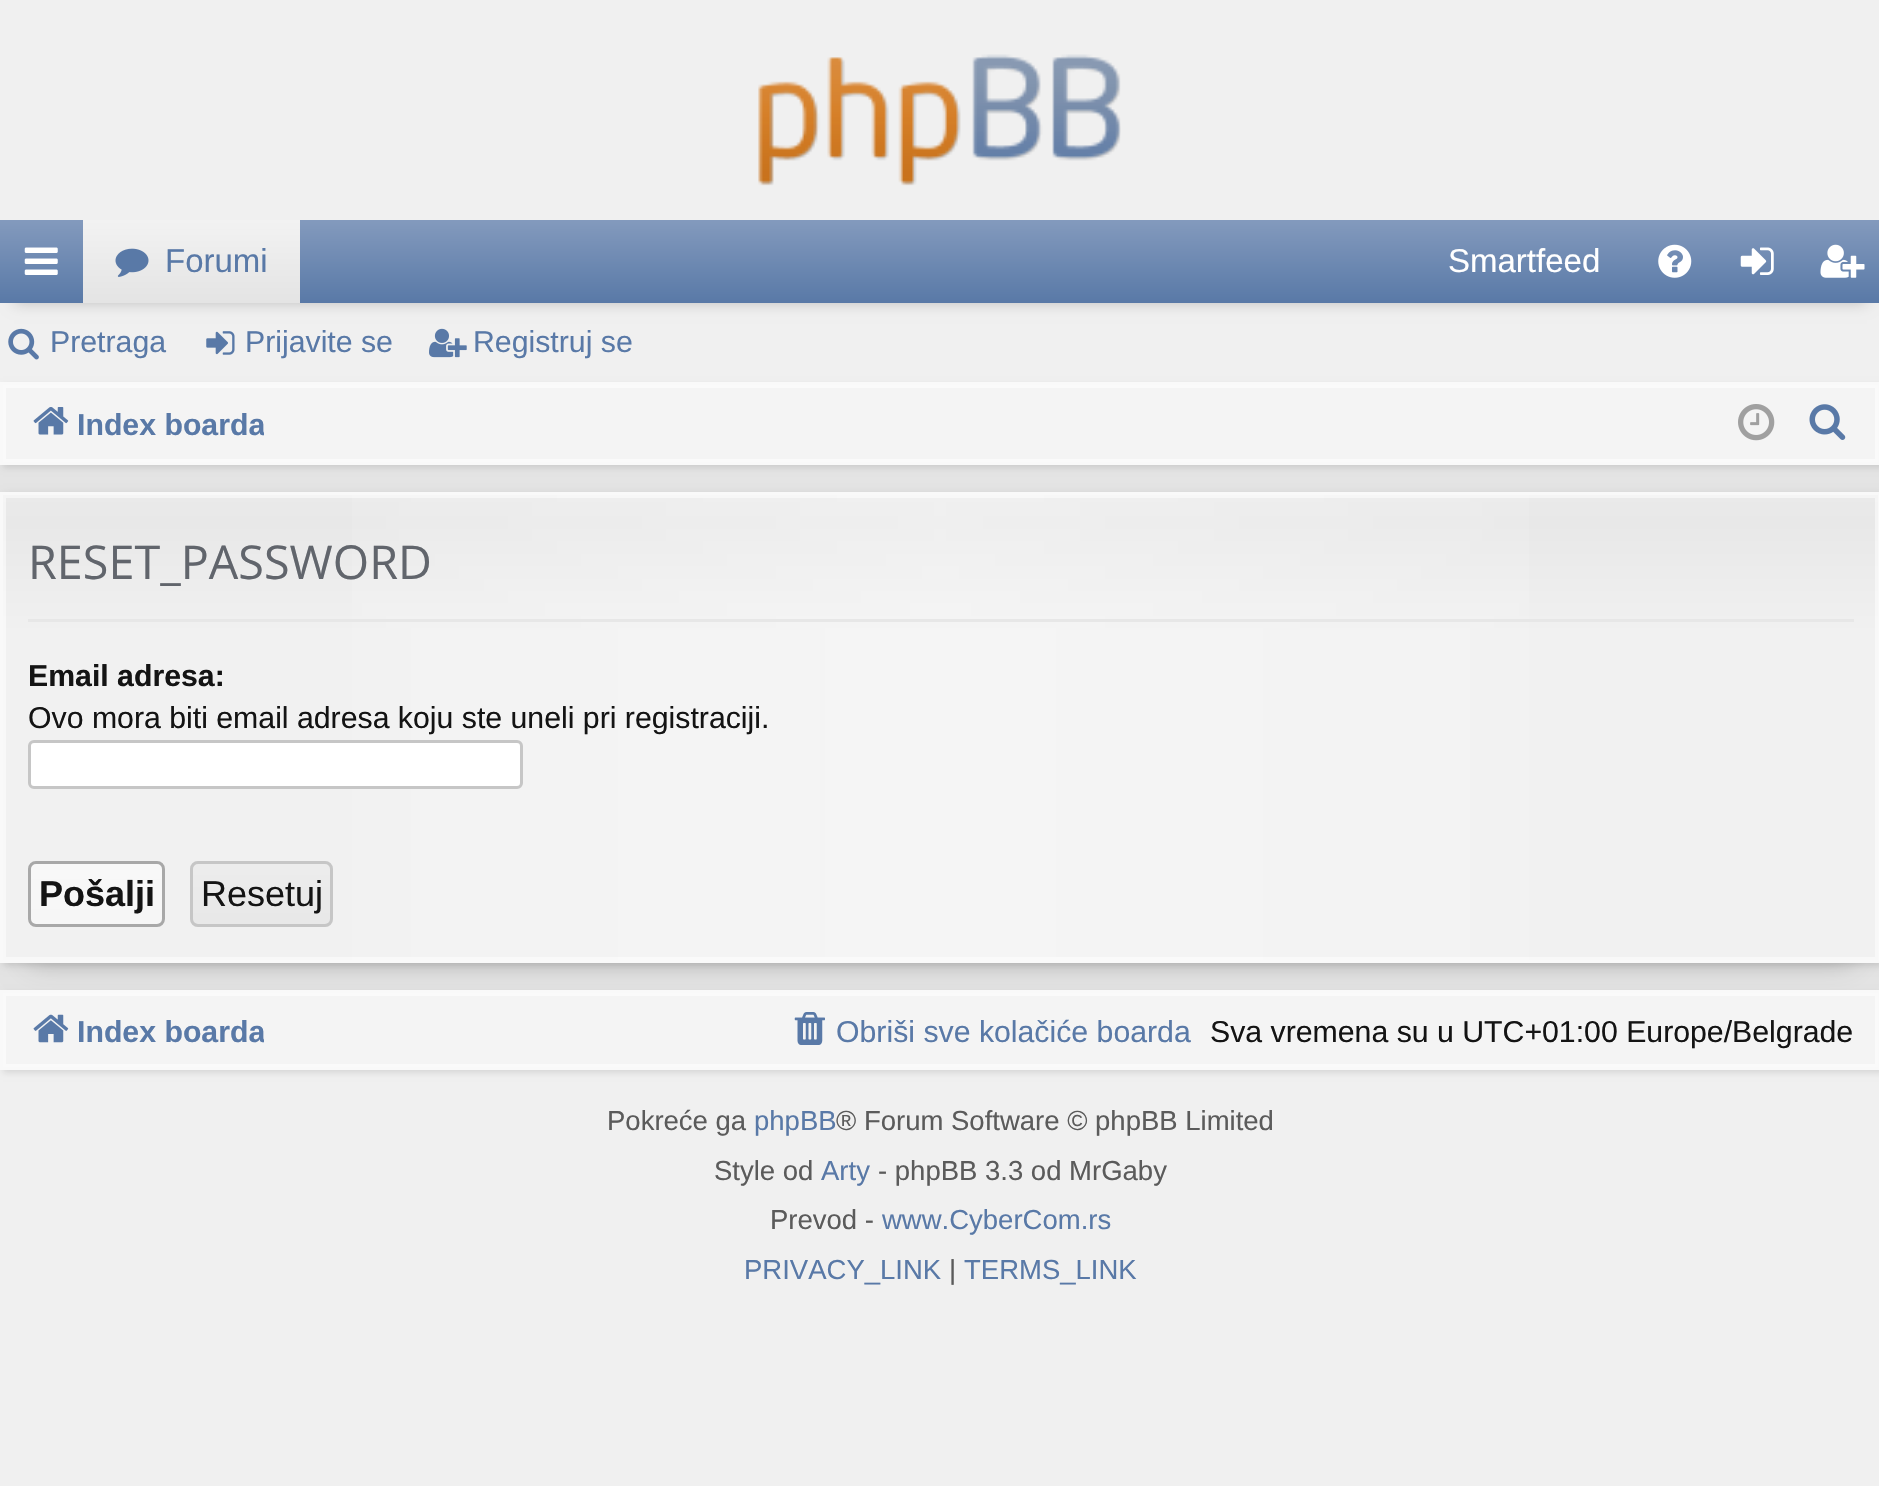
void draw(SkCanvas* c) {
SkPaint p;
p.setAntiAlias(true);
auto F=[&](const char* family, int weight, float size, bool italic = false){SkFontStyle style(weight, SkFontStyle::kNormal_Width,italic ? SkFontStyle::kItalic_Slant : SkFontStyle::kUpright_Slant);SkFont result(fontMgr->matchFamilyStyle(family, style), size);result.setSubpixel(true);return result;};
auto T=[&](const char* s, float x, float y, const SkFont& font){c->drawString(s, x, y, font, p);};
auto R=[&](float x, float y, float w, float h){c->drawRect(SkRect::MakeXYWH(x, y, w, h), p);};
auto Q=[&](float x, float y, float w, float h, float radius){c->drawRoundRect(SkRect::MakeXYWH(x, y, w, h), radius, radius, p);};
auto I=[&](const char* path, float x, float y, float w, float h){auto image = SkImages::DeferredFromEncodedData(SkData::MakeFromFileName(path));c->drawImageRect(image, SkRect::MakeXYWH(x, y, w, h), SkSamplingOptions());};
auto P=[&](const char* data, bool evenOdd = false){SkPath result = *SkParsePath::FromSVGString(data);if (evenOdd) result.setFillType(SkPathFillType::kEvenOdd);return result;};
c->clear(0xfff0f0f0);
I("1.png",758,54,363,132);
p.setColor(0x33000000);
p.setMaskFilter(SkMaskFilter::MakeBlur(kNormal_SkBlurStyle, 7));
c->drawRect(SkRect::MakeXYWH(14,248,1853,55),p);
p.setMaskFilter(nullptr);
{
const SkColor colors[] = {0xff839abd,0xff5979a7};
const float stops[] = {0,1};
const SkPoint ends[] = {{941,220}, {941,303}};
p.setShader(SkGradientShader::MakeLinear(ends, colors, stops, 2, SkTileMode::kClamp));
p.setAlpha(255);
}
R(0,220,1879,83);
I("2.png",24,247,34,28);
{
const SkColor colors[] = {0xfff2f2f2,0xffe4e4e4};
const float stops[] = {0,1};
const SkPoint ends[] = {{191,220}, {191,303}};
p.setShader(SkGradientShader::MakeLinear(ends, colors, stops, 2, SkTileMode::kClamp));
p.setAlpha(255);
}
R(83,220,217,83);
I("3.png",115,248,34,29);
auto f1 = F("Liberation Sans",400,33);
p.setShader(nullptr);
p.setColor(0xff5979a7);
T("Forumi",165,272,f1);
p.setColor(0xffffffff);
T("Smartfeed",1448,272,f1);
I("4.png",1658,244,34,34);
I("5.png",1740,247,34,28);
I("6.png",1820,244,45,34);
I("7.png",8,328,31,32);
auto f2 = F("Liberation Sans",400,30.25);
p.setColor(0xff5979a7);
T("Pretraga",50,352,f2);
I("8.png",206,331,29,24);
T("Prijavite se",245,352,f2);
I("9.png",429,328,38,30);
T("Registruj se",473,352,f2);
p.setColor(0xffe4e4e4);
R(0,465,1879,525);
p.setColor(0x1a000000);
p.setMaskFilter(SkMaskFilter::MakeBlur(kNormal_SkBlurStyle, 3));
c->drawRect(SkRect::MakeXYWH(3,385,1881,83),p);
p.setMaskFilter(nullptr);
p.setColor(0xfff4f4f4);
c->drawRect(SkRect::MakeXYWH(4.5,386.5,1872,74),p);
p.setStroke(true);
p.setStrokeWidth(3);
p.setColor(0xfffafafa);
c->drawRect(SkRect::MakeXYWH(4.5,386.5,1872,74),p);
p.setColor(0xfff9f9f9);
c->drawRect(SkRect::MakeXYWH(1.5,383.5,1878,80),p);
I("10.png",33,407,36,28);
c->save();
c->clipRect(SkRect::MakeXYWH(28,393,236,61));
auto f3 = F("Liberation Sans",700,30.25);
p.setStroke(false);
p.setColor(0xff5979a7);
T("Index boarda",77,435,f3);
c->restore();
I("11.png",1738,404,37,37);
I("12.png",1809,404,37,36);
p.setColor(0x33000000);
p.setMaskFilter(SkMaskFilter::MakeBlur(kNormal_SkBlurStyle, 14));
c->drawRect(SkRect::MakeXYWH(28,547,1826,416),p);
p.setMaskFilter(nullptr);
p.setColor(0x26000000);
p.setMaskFilter(SkMaskFilter::MakeBlur(kNormal_SkBlurStyle, 4));
c->drawRect(SkRect::MakeXYWH(3,495,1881,470),p);
p.setMaskFilter(nullptr);
{
const SkColor colors[] = {0xffeaeaea,0xffe8e8e8,0xfff1f1f1};
const float stops[] = {0,.06,.3};
const SkPoint ends[] = {{941,495}, {941,960}};
p.setShader(SkGradientShader::MakeLinear(ends, colors, stops, 3, SkTileMode::kClamp));
p.setAlpha(255);
}
R(3,495,1875,465);
{
const SkColor colors[] = {0x00ffffff,0x4dffffff,0x00ffffff};
const float stops[] = {0,.5,1};
const SkPoint ends[] = {{2.8,727}, {1878,727}};
p.setShader(SkGradientShader::MakeLinear(ends, colors, stops, 3, SkTileMode::kClamp));
p.setAlpha(255);
}
R(352,495,1177,465);
p.setStroke(true);
p.setShader(nullptr);
p.setColor(0x80ffffff);
c->drawRect(SkRect::MakeXYWH(4.5,496.5,1872,462),p);
p.setColor(0xfff9f9f9);
c->drawRect(SkRect::MakeXYWH(1.5,493.5,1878,468),p);
p.setStroke(false);
p.setColor(0xffe7e7e7);
R(28,619,1826,3);
auto f4 = F("Open Sans",400,46.75);
p.setColor(0xff61656c);
T("RESET_PASSWORD",28,579,f4);
p.setColor(0xff141414);
T("Email adresa:",28,686,f3);
T("Ovo mora biti email adresa koju ste uneli pri registraciji.",28,728,f2);
p.setColor(0xffffffff);
c->drawRoundRect(SkRect::MakeXYWH(29.5,741.5,492,46),4.5,4.5,p);
p.setStroke(true);
p.setColor(0xffc6c6c6);
c->drawRoundRect(SkRect::MakeXYWH(29.5,741.5,492,46),4.5,4.5,p);
c->save();
c->clipPath(P("M36 861h121c4.5 0 8 3.5 8 8v50c0 4.5-3.5 8-8 8h-121c-4.5 0-8-3.5-8-8v-50c0-4.5 3.5-8 8-8z"),true);
p.setStroke(false);
{
const SkColor colors[] = {0xfff8f8f8,0xfff6f6f6};
const float stops[] = {0,1};
const SkPoint ends[] = {{96,864}, {96,924}};
p.setShader(SkGradientShader::MakeLinear(ends, colors, stops, 2, SkTileMode::kClamp));
p.setAlpha(255);
}
R(28,864,137,60);
c->restore();
p.setStroke(true);
p.setShader(nullptr);
p.setColor(0xffa8a8a8);
c->drawRoundRect(SkRect::MakeXYWH(29.5,862.5,134,63),6.5,6.5,p);
auto f5 = F("Liberation Sans",700,36);
p.setStroke(false);
p.setColor(0xff141414);
T("Pošalji",39,906,f5);
p.setColor(0xffe8e8e8);
Q(190,861,143,66,8);
c->save();
c->clipPath(P("M198 861h127c4.5 0 8 3.5 8 8v50c0 4.5-3.5 8-8 8h-127c-4.5 0-8-3.5-8-8v-50c0-4.5 3.5-8 8-8z"),true);
{
const SkColor colors[] = {0x33ffffff,0x00ffffff};
const float stops[] = {0,1};
const SkPoint ends[] = {{261,864}, {261,924}};
p.setShader(SkGradientShader::MakeLinear(ends, colors, stops, 2, SkTileMode::kClamp));
p.setAlpha(255);
}
R(190,864,143,54);
c->restore();
p.setStroke(true);
p.setShader(nullptr);
p.setColor(0xffc6c6c6);
c->drawRoundRect(SkRect::MakeXYWH(191.5,862.5,140,63),6.5,6.5,p);
auto f6 = F("Liberation Sans",400,36);
p.setStroke(false);
p.setColor(0xff141414);
T("Resetuj",201,906,f6);
p.setColor(0x1a000000);
p.setMaskFilter(SkMaskFilter::MakeBlur(kNormal_SkBlurStyle, 3));
c->drawRect(SkRect::MakeXYWH(3,993,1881,80),p);
p.setMaskFilter(nullptr);
p.setColor(0xfff4f4f4);
c->drawRect(SkRect::MakeXYWH(4.5,994.5,1872,71),p);
p.setStroke(true);
p.setColor(0xfffafafa);
c->drawRect(SkRect::MakeXYWH(4.5,994.5,1872,71),p);
p.setColor(0xfff9f9f9);
c->drawRect(SkRect::MakeXYWH(1.5,991.5,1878,77),p);
I("13.png",33,1014,36,29);
c->save();
c->clipRect(SkRect::MakeXYWH(28,1001,236,61));
p.setStroke(false);
p.setColor(0xff5979a7);
T("Index boarda",77,1042,f3);
c->restore();
I("14.png",794,1012,31,33);
T("Obriši sve kolačiće boarda",836,1042,f2);
p.setColor(0xff141414);
T("Sva vremena su u UTC+01:00 Europe/Belgrade",1210,1042,f2);
auto f7 = F("Liberation Sans",400,27.5);
p.setColor(0xff5b5b5b);
T("Pokreće ga",607,1130,f7);
p.setColor(0xff5979a7);
T("phpBB",754,1130,f7);
p.setColor(0xff5b5b5b);
T("® Forum Software © phpBB Limited",836,1130,f7);
T("Style od",714,1180,f7);
p.setColor(0xff5979a7);
T("Arty",821,1180,f7);
p.setColor(0xff5b5b5b);
T("- phpBB 3.3 od MrGaby",878,1180,f7);
T("Prevod -",770,1229,f7);
p.setColor(0xff5979a7);
T("www.CyberCom.rs",882,1229,f7);
T("PRIVACY_LINK",744,1279,f7);
p.setColor(0xff5b5b5b);
T("|",949,1279,f7);
p.setColor(0xff5979a7);
T("TERMS_LINK",964,1279,f7);
}
